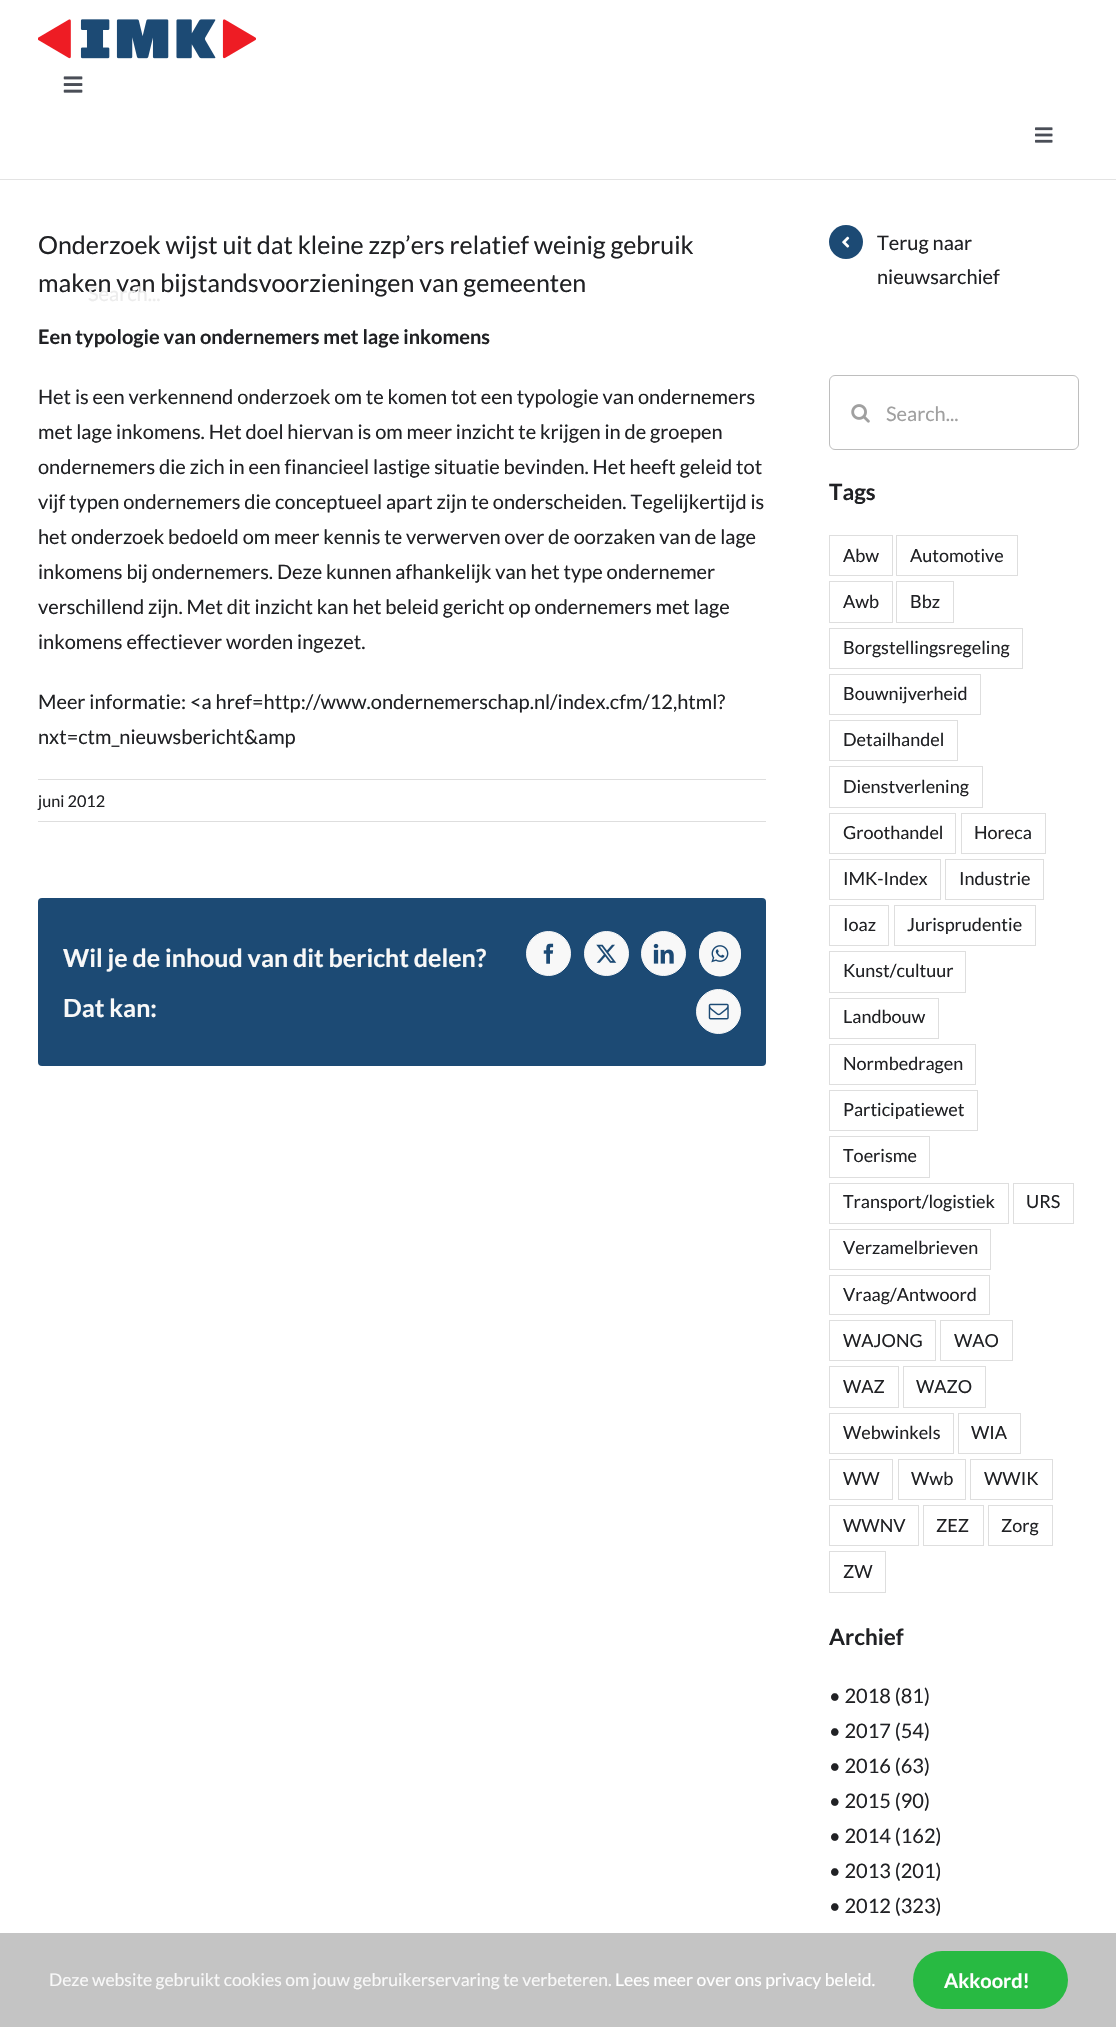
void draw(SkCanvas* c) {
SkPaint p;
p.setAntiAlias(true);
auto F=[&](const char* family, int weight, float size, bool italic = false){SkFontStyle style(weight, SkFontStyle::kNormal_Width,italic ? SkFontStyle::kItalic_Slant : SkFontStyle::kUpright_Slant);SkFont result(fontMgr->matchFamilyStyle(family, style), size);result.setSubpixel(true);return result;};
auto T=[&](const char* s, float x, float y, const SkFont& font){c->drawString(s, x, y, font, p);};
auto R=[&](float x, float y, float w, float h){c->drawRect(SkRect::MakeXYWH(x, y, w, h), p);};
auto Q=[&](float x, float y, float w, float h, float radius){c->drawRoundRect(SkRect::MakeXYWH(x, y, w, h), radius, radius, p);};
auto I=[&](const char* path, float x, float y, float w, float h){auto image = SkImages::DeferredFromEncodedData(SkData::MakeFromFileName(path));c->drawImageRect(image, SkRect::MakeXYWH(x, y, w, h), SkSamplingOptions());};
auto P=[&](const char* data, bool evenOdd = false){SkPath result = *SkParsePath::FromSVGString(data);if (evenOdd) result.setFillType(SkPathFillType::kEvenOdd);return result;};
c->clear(0xffffffff);
auto f1 = F("Lato",400,25);
p.setColor(0xff202124);
T("Onderzoek wijst uit dat kleine zzp’ers relatief weinig gebruik",38,254,f1);
T("maken van bijstandsvoorzieningen van gemeenten",38,292,f1);
auto f2 = F("Lato",700,20);
T("Een typologie van ondernemers met lage inkomens",38,344,f2);
auto f3 = F("Lato",400,20);
T("Het is een verkennend onderzoek om te komen tot een typologie van ondernemers",38,404,f3);
T("met lage inkomens. Het doel hiervan is om meer inzicht te krijgen in de groepen",38,439,f3);
T("ondernemers die zich in een financieel lastige situatie bevinden. Het heeft geleid tot",38,474,f3);
T("vijf typen ondernemers die conceptueel apart zijn te onderscheiden. Tegelijkertijd is",38,509,f3);
T("het onderzoek bedoeld om meer kennis te verwerven over de oorzaken van de lage",38,544,f3);
T("inkomens bij ondernemers. Deze kunnen afhankelijk van het type ondernemer",38,579,f3);
T("verschillend zijn. Met dit inzicht kan het beleid gericht op ondernemers met lage",38,614,f3);
T("inkomens effectiever worden ingezet.",38,649,f3);
T("Meer informatie: <a href=http://www.ondernemerschap.nl/index.cfm/12,html?",38,709,f3);
T("nxt=ctm_nieuwsbericht&amp",38,744,f3);
p.setColor(0xffdedede);
R(38,779,728,1);
R(38,821,728,1);
auto f4 = F("Lato",400,16.25);
p.setColor(0xff202124);
T("juni 2012",38,807,f4);
p.setColor(0xff1c4a74);
Q(38,898,728,168,4);
auto f5 = F("Lato",700,25);
p.setColor(0xfff8f8f8);
T("Wil je de inhoud van dit bericht delen?",63,967,f5);
T("Dat kan:",63,1017,f5);
c->drawCircle(548.5,953.5,22,p);
p.setStroke(true);
p.setStrokeWidth(1);
c->drawCircle(548.5,953.5,22,p);
I("1.png",543,943,11,21);
p.setStroke(false);
c->drawCircle(606.5,953.5,22,p);
p.setStroke(true);
c->drawCircle(606.5,953.5,22,p);
I("2.png",596,944,21,19);
p.setStroke(false);
c->drawCircle(663.5,953.5,22,p);
p.setStroke(true);
c->drawCircle(663.5,953.5,22,p);
I("3.png",653,943,21,21);
p.setStroke(false);
c->drawOval(SkRect::MakeXYWH(699,931.5,42,45),p);
p.setStroke(true);
p.setStrokeWidth(1.2);
c->drawPath(P("M720 932c27 0 27 43.5 0 43.5c-27 0-27-43.5 0-43.5z"),p);
I("4.png",711,945,18,18);
p.setStroke(false);
c->drawCircle(718.5,1011.5,22,p);
p.setStroke(true);
p.setStrokeWidth(1);
c->drawCircle(718.5,1011.5,22,p);
I("5.png",708,1003,21,17);
p.setStroke(false);
p.setColor(0xff1c4a74);
c->drawCircle(846,242,17,p);
I("6.png",842,236,8,12);
p.setColor(0xff202124);
T("Terug naar",877,250,f3);
T("nieuwsarchief",877,284,f3);
p.setStroke(true);
p.setColor(0xffbebebe);
c->drawRoundRect(SkRect::MakeXYWH(829.5,375.5,249,74),5.5,5.5,p);
I("7.png",851,404,19,19);
p.setStroke(false);
p.setColor(0xffa0a0a0);
T("Search...",886,421,f3);
auto f6 = F("Lato",700,22.5);
p.setColor(0xff202124);
T("Tags",829,500,f6);
p.setStroke(true);
p.setColor(0xffdedede);
c->drawRect(SkRect::MakeXYWH(829.5,535.5,63,40),p);
auto f7 = F("Lato",400,18);
p.setStroke(false);
p.setColor(0xff202124);
T("Abw",843,562,f7);
p.setStroke(true);
p.setColor(0xffdedede);
c->drawRect(SkRect::MakeXYWH(896.5,535.5,121,40),p);
p.setStroke(false);
p.setColor(0xff202124);
T("Automotive",910,562,f7);
p.setStroke(true);
p.setColor(0xffdedede);
c->drawRect(SkRect::MakeXYWH(829.5,581.5,63,41),p);
p.setStroke(false);
p.setColor(0xff202124);
T("Awb",843,608,f7);
p.setStroke(true);
p.setColor(0xffdedede);
c->drawRect(SkRect::MakeXYWH(896.5,581.5,57,41),p);
p.setStroke(false);
p.setColor(0xff202124);
T("Bbz",910,608,f7);
p.setStroke(true);
p.setColor(0xffdedede);
c->drawRect(SkRect::MakeXYWH(829.5,628.5,193,40),p);
p.setStroke(false);
p.setColor(0xff202124);
T("Borgstellingsregeling",843,654,f7);
p.setStroke(true);
p.setColor(0xffdedede);
c->drawRect(SkRect::MakeXYWH(829.5,674.5,151,40),p);
p.setStroke(false);
p.setColor(0xff202124);
T("Bouwnijverheid",843,700,f7);
p.setStroke(true);
p.setColor(0xffdedede);
c->drawRect(SkRect::MakeXYWH(829.5,720.5,128,40),p);
p.setStroke(false);
p.setColor(0xff202124);
T("Detailhandel",843,746,f7);
p.setStroke(true);
p.setColor(0xffdedede);
c->drawRect(SkRect::MakeXYWH(829.5,766.5,153,41),p);
p.setStroke(false);
p.setColor(0xff202124);
T("Dienstverlening",843,793,f7);
p.setStroke(true);
p.setColor(0xffdedede);
c->drawRect(SkRect::MakeXYWH(829.5,813.5,126,40),p);
p.setStroke(false);
p.setColor(0xff202124);
T("Groothandel",843,839,f7);
p.setStroke(true);
p.setColor(0xffdedede);
c->drawRect(SkRect::MakeXYWH(961.5,813.5,84,40),p);
p.setStroke(false);
p.setColor(0xff202124);
T("Horeca",974,839,f7);
p.setStroke(true);
p.setColor(0xffdedede);
c->drawRect(SkRect::MakeXYWH(829.5,859.5,111,40),p);
p.setStroke(false);
p.setColor(0xff202124);
T("IMK-Index",843,885,f7);
p.setStroke(true);
p.setColor(0xffdedede);
c->drawRect(SkRect::MakeXYWH(945.5,859.5,98,40),p);
p.setStroke(false);
p.setColor(0xff202124);
T("Industrie",959,885,f7);
p.setStroke(true);
p.setColor(0xffdedede);
c->drawRect(SkRect::MakeXYWH(829.5,905.5,59,40),p);
p.setStroke(false);
p.setColor(0xff202124);
T("Ioaz",843,931,f7);
p.setStroke(true);
p.setColor(0xffdedede);
c->drawRect(SkRect::MakeXYWH(894.5,905.5,141,40),p);
p.setStroke(false);
p.setColor(0xff202124);
T("Jurisprudentie",907,931,f7);
p.setStroke(true);
p.setColor(0xffdedede);
c->drawRect(SkRect::MakeXYWH(829.5,951.5,136,41),p);
p.setStroke(false);
p.setColor(0xff202124);
T("Kunst/cultuur",843,977,f7);
p.setStroke(true);
p.setColor(0xffdedede);
c->drawRect(SkRect::MakeXYWH(829.5,998.5,109,40),p);
p.setStroke(false);
p.setColor(0xff202124);
T("Landbouw",843,1023,f7);
p.setStroke(true);
p.setColor(0xffdedede);
c->drawRect(SkRect::MakeXYWH(829.5,1044.5,146,40),p);
p.setStroke(false);
p.setColor(0xff202124);
T("Normbedragen",843,1070,f7);
p.setStroke(true);
p.setColor(0xffdedede);
c->drawRect(SkRect::MakeXYWH(829.5,1090.5,148,40),p);
p.setStroke(false);
p.setColor(0xff202124);
T("Participatiewet",843,1116,f7);
p.setStroke(true);
p.setColor(0xffdedede);
c->drawRect(SkRect::MakeXYWH(829.5,1136.5,100,41),p);
p.setStroke(false);
p.setColor(0xff202124);
T("Toerisme",843,1162,f7);
p.setStroke(true);
p.setColor(0xffdedede);
c->drawRect(SkRect::MakeXYWH(829.5,1183.5,179,40),p);
p.setStroke(false);
p.setColor(0xff202124);
T("Transport/logistiek",843,1208,f7);
p.setStroke(true);
p.setColor(0xffdedede);
c->drawRect(SkRect::MakeXYWH(1013.5,1183.5,60,40),p);
p.setStroke(false);
p.setColor(0xff202124);
T("URS",1026,1208,f7);
p.setStroke(true);
p.setColor(0xffdedede);
c->drawRect(SkRect::MakeXYWH(829.5,1229.5,161,40),p);
p.setStroke(false);
p.setColor(0xff202124);
T("Verzamelbrieven",843,1254,f7);
p.setStroke(true);
p.setColor(0xffdedede);
c->drawRect(SkRect::MakeXYWH(829.5,1275.5,160,39),p);
p.setStroke(false);
p.setColor(0xff202124);
T("Vraag/Antwoord",843,1301,f7);
p.setStroke(true);
p.setColor(0xffdedede);
c->drawRect(SkRect::MakeXYWH(829.5,1320.5,106,40),p);
p.setStroke(false);
p.setColor(0xff202124);
T("WAJONG",843,1347,f7);
p.setStroke(true);
p.setColor(0xffdedede);
c->drawRect(SkRect::MakeXYWH(940.5,1320.5,72,40),p);
p.setStroke(false);
p.setColor(0xff202124);
T("WAO",954,1347,f7);
p.setStroke(true);
p.setColor(0xffdedede);
c->drawRect(SkRect::MakeXYWH(829.5,1366.5,69,41),p);
p.setStroke(false);
p.setColor(0xff202124);
T("WAZ",843,1393,f7);
p.setStroke(true);
p.setColor(0xffdedede);
c->drawRect(SkRect::MakeXYWH(903.5,1366.5,82,41),p);
p.setStroke(false);
p.setColor(0xff202124);
T("WAZO",916,1393,f7);
p.setStroke(true);
p.setColor(0xffdedede);
c->drawRect(SkRect::MakeXYWH(829.5,1413.5,124,40),p);
p.setStroke(false);
p.setColor(0xff202124);
T("Webwinkels",843,1439,f7);
p.setStroke(true);
p.setColor(0xffdedede);
c->drawRect(SkRect::MakeXYWH(958.5,1413.5,62,40),p);
p.setStroke(false);
p.setColor(0xff202124);
T("WIA",971,1439,f7);
p.setStroke(true);
p.setColor(0xffdedede);
c->drawRect(SkRect::MakeXYWH(829.5,1459.5,63,40),p);
p.setStroke(false);
p.setColor(0xff202124);
T("WW",843,1485,f7);
p.setStroke(true);
p.setColor(0xffdedede);
c->drawRect(SkRect::MakeXYWH(898.5,1459.5,67,40),p);
p.setStroke(false);
p.setColor(0xff202124);
T("Wwb",911,1485,f7);
p.setStroke(true);
p.setColor(0xffdedede);
c->drawRect(SkRect::MakeXYWH(970.5,1459.5,82,40),p);
p.setStroke(false);
p.setColor(0xff202124);
T("WWIK",984,1485,f7);
p.setStroke(true);
p.setColor(0xffdedede);
c->drawRect(SkRect::MakeXYWH(829.5,1505.5,89,40),p);
p.setStroke(false);
p.setColor(0xff202124);
T("WWNV",843,1532,f7);
p.setStroke(true);
p.setColor(0xffdedede);
c->drawRect(SkRect::MakeXYWH(923.5,1505.5,60,40),p);
p.setStroke(false);
p.setColor(0xff202124);
T("ZEZ",936,1532,f7);
p.setStroke(true);
p.setColor(0xffdedede);
c->drawRect(SkRect::MakeXYWH(988.5,1505.5,64,40),p);
p.setStroke(false);
p.setColor(0xff202124);
T("Zorg",1001,1532,f7);
p.setStroke(true);
p.setColor(0xffdedede);
c->drawRect(SkRect::MakeXYWH(829.5,1551.5,56,41),p);
p.setStroke(false);
p.setColor(0xff202124);
T("ZW",843,1578,f7);
T("Archief",829,1645,f6);
T("• 2018 (81)",829,1703,f3);
T("• 2017 (54)",829,1738,f3);
T("• 2016 (63)",829,1773,f3);
T("• 2015 (90)",829,1808,f3);
T("• 2014 (162)",829,1843,f3);
T("• 2013 (201)",829,1878,f3);
T("• 2012 (323)",829,1913,f3);
p.setColor(0xffe3e3e3);
R(0,179,1116,1);
I("8.png",38,19,218,40);
I("9.png",63,76,20,17);
I("10.png",1035,127,18,16);
p.setColor(0xffececec);
T("Search...",88,301,f3);
p.setColor(0xffc4c4c4);
R(0,1933,1116,94);
auto f8 = F("Lato",400,17.5);
p.setColor(0xfff8f8f8);
T("Deze website gebruikt cookies om jouw gebruikerservaring te verbeteren.",49,1986,f8);
p.setColor(0xffffffff);
T("Lees meer over ons privacy beleid.",615,1986,f8);
p.setColor(0xff28ba42);
Q(913,1951,155,58,29);
p.setColor(0xffffffff);
T("Akkoord!",944,1988,f2);
}
